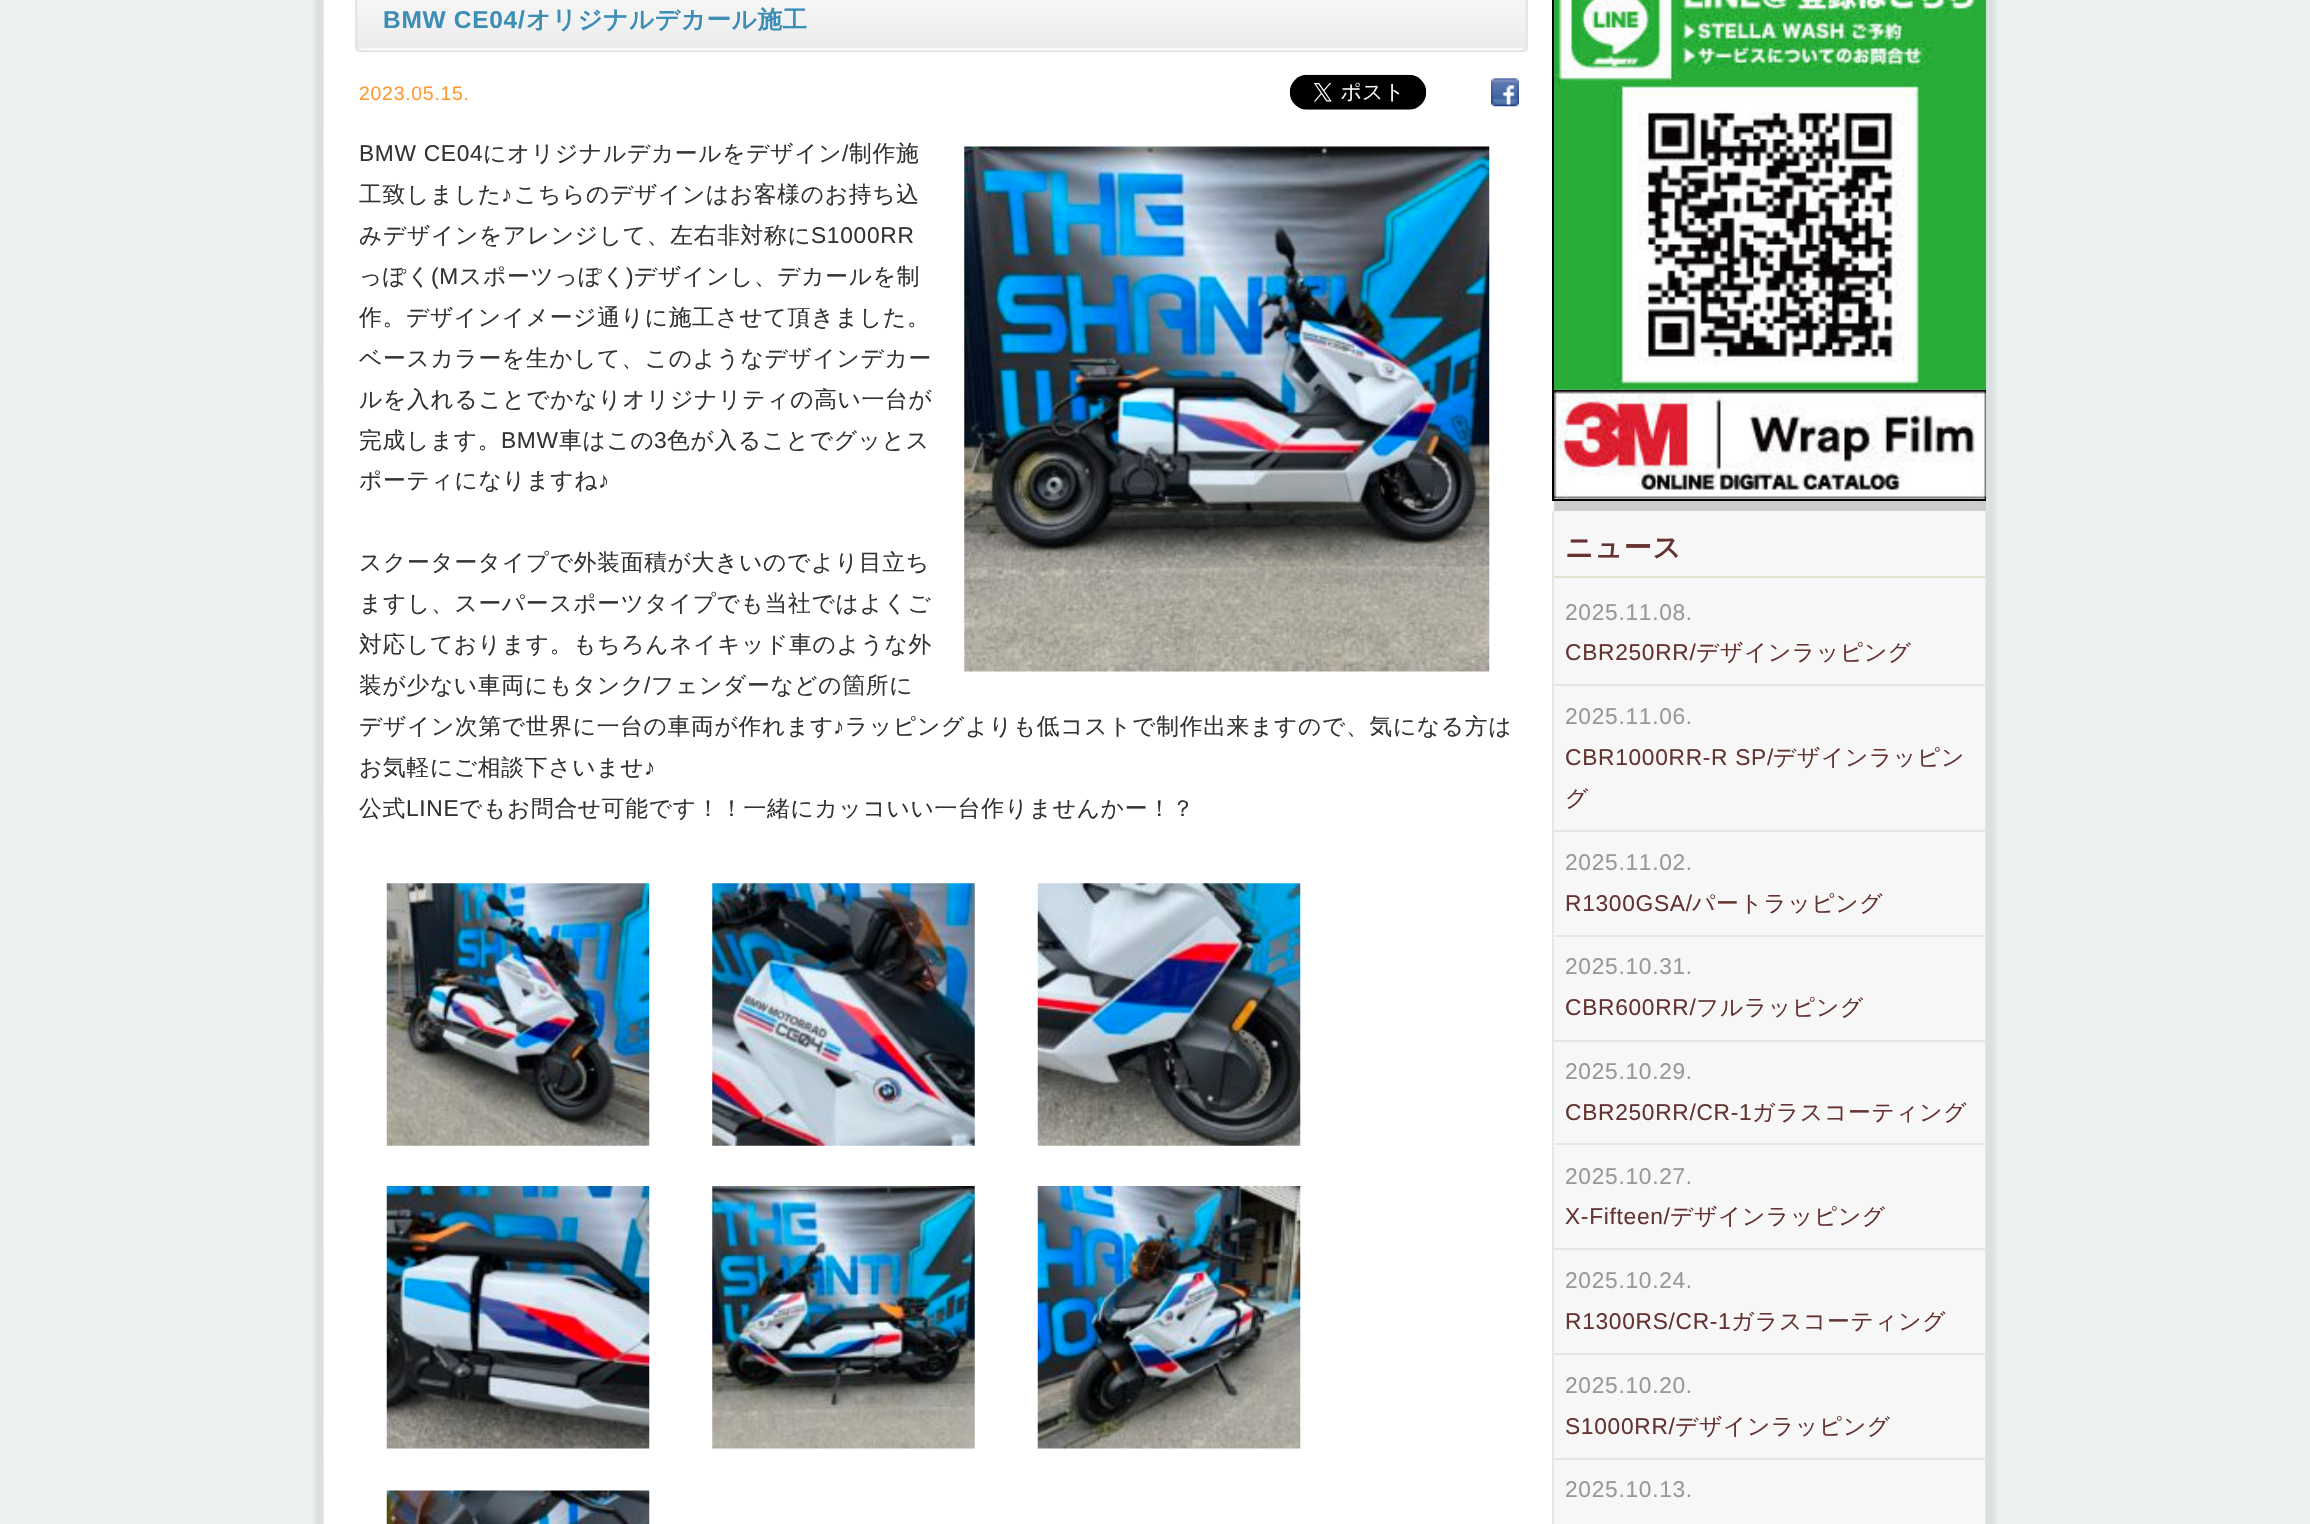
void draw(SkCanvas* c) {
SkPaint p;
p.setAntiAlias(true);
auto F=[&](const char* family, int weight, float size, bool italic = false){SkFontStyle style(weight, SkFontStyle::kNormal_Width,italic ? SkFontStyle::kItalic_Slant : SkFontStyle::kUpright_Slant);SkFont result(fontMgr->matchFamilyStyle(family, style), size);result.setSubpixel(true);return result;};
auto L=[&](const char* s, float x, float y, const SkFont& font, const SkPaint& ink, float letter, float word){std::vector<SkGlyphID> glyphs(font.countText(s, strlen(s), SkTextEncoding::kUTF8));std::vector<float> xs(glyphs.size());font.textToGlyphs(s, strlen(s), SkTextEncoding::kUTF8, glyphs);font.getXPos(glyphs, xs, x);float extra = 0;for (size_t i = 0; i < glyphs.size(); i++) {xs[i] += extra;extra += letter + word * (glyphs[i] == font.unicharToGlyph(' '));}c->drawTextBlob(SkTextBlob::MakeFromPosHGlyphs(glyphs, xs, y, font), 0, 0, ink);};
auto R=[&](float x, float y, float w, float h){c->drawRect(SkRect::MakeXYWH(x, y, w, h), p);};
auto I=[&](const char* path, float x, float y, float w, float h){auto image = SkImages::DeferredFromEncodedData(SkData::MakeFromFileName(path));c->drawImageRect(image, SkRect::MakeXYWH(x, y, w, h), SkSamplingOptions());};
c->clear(0xffebf1f1);
I("1.png",313,0,1684,1524);
I("2.png",323,0,1664,1524);
I("3.png",355,0,1173,52);
auto f1 = F("Liberation Sans",700,24.5);
p.setColor(0xff3d8eb6);
L("BMW CE04/",383,28,f1,p,.7,0);
auto f2 = F("WenQuanYi Zen Hei",700,24.5);
L("オリジナルデカール施工",526,28,f2,p,.7,0);
auto f3 = F("Liberation Sans",400,19.5);
p.setColor(0xffff9933);
L("2023.05.15.",359,100,f3,p,.7,0);
I("4.png",1289,74,138,36);
I("5.png",1491,78,28,29);
auto f4 = F("Liberation Sans",400,22.75);
p.setColor(0xff333333);
L("BMW CE04",359,161,f4,p,.7,0);
auto f5 = F("WenQuanYi Zen Hei",500,22.75);
L("にオリジナルデカールをデザイン",483,161,f5,p,.7,0);
L("/",842,161,f4,p,.7,0);
L("制作施",849,161,f5,p,.7,0);
I("6.png",964,146,526,526);
L("工致しました",359,202,f5,p,.7,0);
L("♪",501,202,f4,p,.7,0);
L("こちらのデザインはお客様のお持ち込",514,202,f5,p,.7,0);
L("みデザインをアレンジして、左右非対称に",359,243,f5,p,.7,0);
L("S1000RR",811,243,f4,p,.7,0);
L("っぽく",359,284,f5,p,.7,0);
L("(M",431,284,f4,p,.7,0);
L("スポーツっぽく",459,284,f5,p,.7,0);
L(")",626,284,f4,p,.7,0);
L("デザインし、デカールを制",634,284,f5,p,.7,0);
L("作。デザインイメージ通りに施工させて頂きました。",359,325,f5,p,.7,0);
L("ベースカラーを生かして、このようなデザインデカー",359,366,f5,p,.7,0);
L("ルを入れることでかなりオリジナリティの高い一台が",359,407,f5,p,.7,0);
L("完成します。",359,448,f5,p,.7,0);
L("BMW",501,448,f4,p,.7,0);
L("車はこの",559,448,f5,p,.7,0);
L("3",654,448,f4,p,.7,0);
L("色が入ることでグッとス",667,448,f5,p,.7,0);
L("ポーティになりますね",359,488,f5,p,.7,0);
L("♪",598,488,f4,p,.7,0);
L("スクータータイプで外装面積が大きいのでより目立ち",359,570,f5,p,.7,0);
L("ますし、スーパースポーツタイプでも当社ではよくご",359,611,f5,p,.7,0);
L("対応しております。もちろんネイキッド車のような外",359,652,f5,p,.7,0);
L("装が少ない車両にもタンク",359,693,f5,p,.7,0);
L("/",644,693,f4,p,.7,0);
L("フェンダーなどの箇所に",651,693,f5,p,.7,0);
L("デザイン次第で世界に一台の車両が作れます",359,734,f5,p,.7,0);
L("♪",833,734,f4,p,.7,0);
L("ラッピングよりも低コストで制作出来ますので、気になる方は",845,734,f5,p,.7,0);
L("お気軽にご相談下さいませ",359,775,f5,p,.7,0);
L("♪",644,775,f4,p,.7,0);
L("公式",359,816,f5,p,.7,0);
L("LINE",406,816,f4,p,.7,0);
L("でもお問合せ可能です！！一緒にカッコいい一台作りませんかー！？",459,816,f5,p,.7,0);
I("7.png",386,883,264,263);
I("8.png",712,883,263,263);
I("9.png",1037,883,264,263);
I("10.png",386,1186,264,263);
I("11.png",712,1186,263,263);
I("12.png",1037,1186,264,263);
I("13.png",386,1490,264,34);
p.setColor(0xff010000);
R(1985,389,1,112);
R(1552,0,2,501);
R(1554,390,431,2);
I("14.png",1554,0,433,390);
R(1554,499,431,2);
I("15.png",1554,391,433,108);
p.setColor(0xfff7f7f7);
R(1554,511,431,1013);
p.setColor(0xffe6e6e6);
R(1985,511,1,1013);
R(1552,511,2,1013);
p.setColor(0xffe4e4cc);
R(1554,576,431,2);
auto f6 = F("WenQuanYi Zen Hei",700,28);
p.setColor(0xff643332);
L("ニュース",1565,557,f6,p,.7,0);
p.setColor(0xff999999);
L("2025.11.08.",1565,620,f4,p,.7,0);
p.setColor(0xffe6e6e6);
R(1554,684,431,2);
p.setColor(0xff643332);
L("CBR250RR/",1565,660,f4,p,.7,0);
L("デザインラッピング",1696,660,f5,p,.7,0);
p.setColor(0xff999999);
L("2025.11.06.",1565,724,f4,p,.7,0);
p.setColor(0xffe6e6e6);
R(1554,830,431,2);
p.setColor(0xff643332);
L("CBR1000RR-R SP/",1565,765,f4,p,.7,0);
L("デザインラッピン",1773,765,f5,p,.7,0);
L("グ",1565,806,f5,p,.7,0);
p.setColor(0xff999999);
L("2025.11.02.",1565,870,f4,p,.7,0);
p.setColor(0xffe6e6e6);
R(1554,935,431,2);
p.setColor(0xff643332);
L("R1300GSA/",1565,911,f4,p,.7,0);
L("パートラッピング",1692,911,f5,p,.7,0);
p.setColor(0xff999999);
L("2025.10.31.",1565,974,f4,p,.7,0);
p.setColor(0xffe6e6e6);
R(1554,1040,431,2);
p.setColor(0xff643332);
L("CBR600RR/",1565,1015,f4,p,.7,0);
L("フルラッピング",1696,1015,f5,p,.7,0);
p.setColor(0xff999999);
L("2025.10.29.",1565,1079,f4,p,.7,0);
p.setColor(0xffe6e6e6);
R(1554,1143,431,2);
p.setColor(0xff643332);
L("CBR250RR/CR-1",1565,1120,f4,p,.7,0);
L("ガラスコーティング",1752,1120,f5,p,.7,0);
p.setColor(0xff999999);
L("2025.10.27.",1565,1184,f4,p,.7,0);
p.setColor(0xffe6e6e6);
R(1554,1248,431,2);
p.setColor(0xff643332);
L("X-Fifteen/",1565,1224,f4,p,.7,0);
L("デザインラッピング",1670,1224,f5,p,.7,0);
p.setColor(0xff999999);
L("2025.10.24.",1565,1288,f4,p,.7,0);
p.setColor(0xffe6e6e6);
R(1554,1353,431,2);
p.setColor(0xff643332);
L("R1300RS/CR-1",1565,1329,f4,p,.7,0);
L("ガラスコーティング",1731,1329,f5,p,.7,0);
p.setColor(0xff999999);
L("2025.10.20.",1565,1393,f4,p,.7,0);
p.setColor(0xffe6e6e6);
R(1554,1458,431,2);
p.setColor(0xff643332);
L("S1000RR/",1565,1434,f4,p,.7,0);
L("デザインラッピング",1675,1434,f5,p,.7,0);
p.setColor(0xff999999);
L("2025.10.13.",1565,1497,f4,p,.7,0);
}
